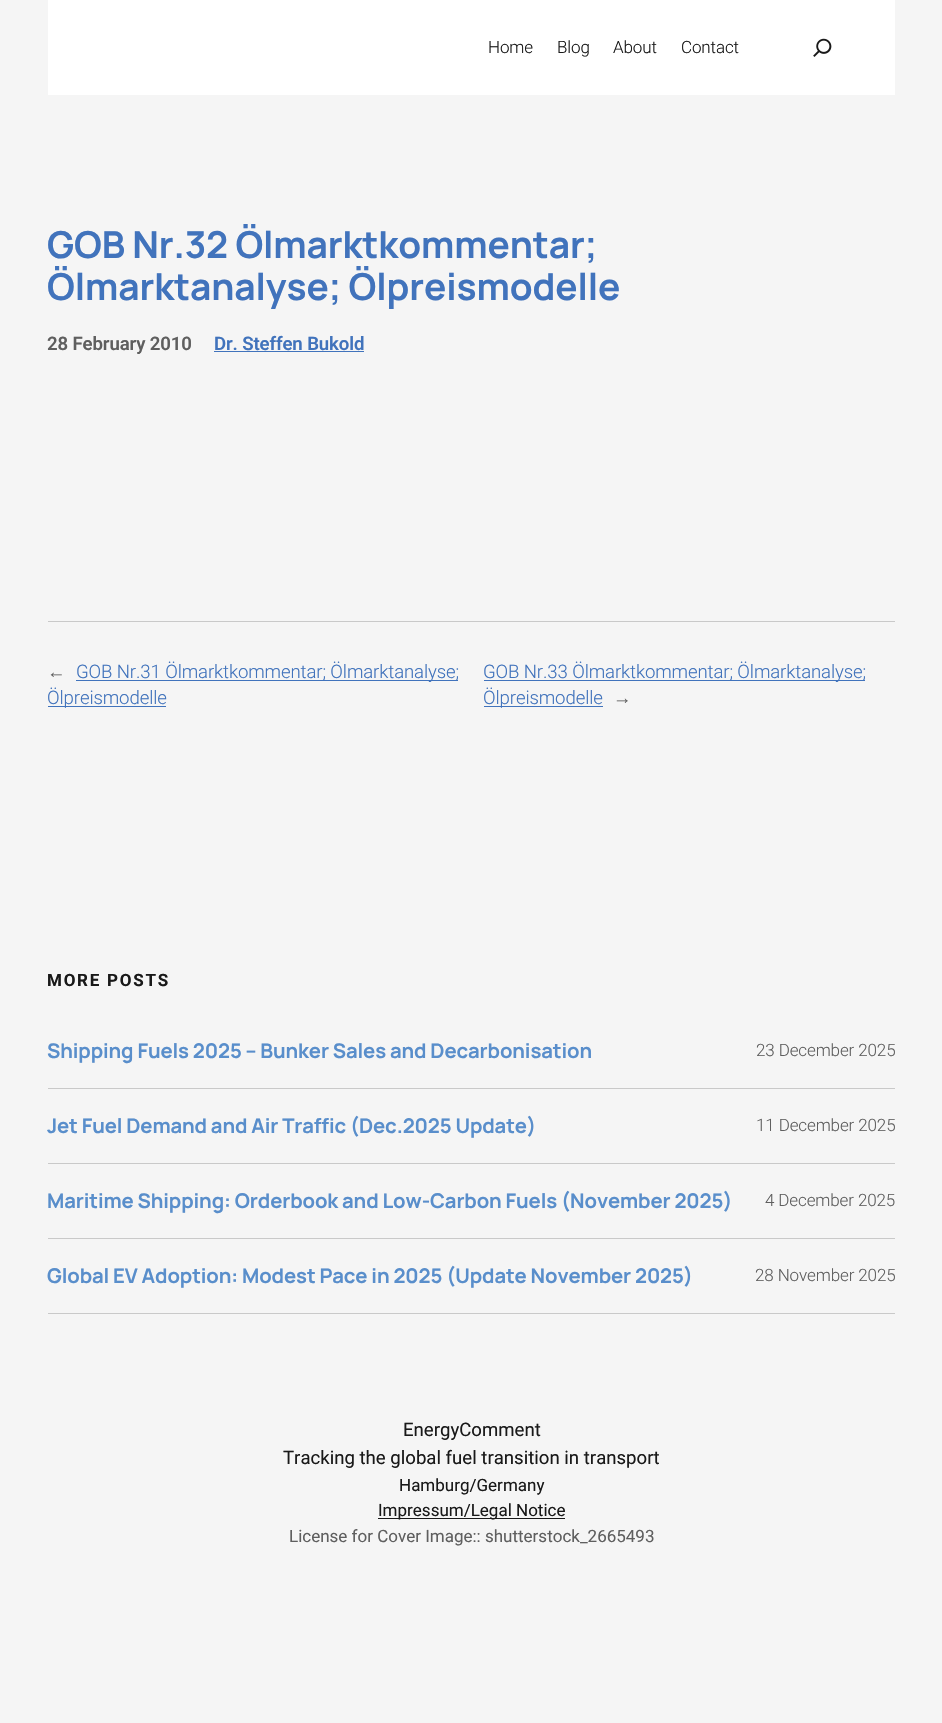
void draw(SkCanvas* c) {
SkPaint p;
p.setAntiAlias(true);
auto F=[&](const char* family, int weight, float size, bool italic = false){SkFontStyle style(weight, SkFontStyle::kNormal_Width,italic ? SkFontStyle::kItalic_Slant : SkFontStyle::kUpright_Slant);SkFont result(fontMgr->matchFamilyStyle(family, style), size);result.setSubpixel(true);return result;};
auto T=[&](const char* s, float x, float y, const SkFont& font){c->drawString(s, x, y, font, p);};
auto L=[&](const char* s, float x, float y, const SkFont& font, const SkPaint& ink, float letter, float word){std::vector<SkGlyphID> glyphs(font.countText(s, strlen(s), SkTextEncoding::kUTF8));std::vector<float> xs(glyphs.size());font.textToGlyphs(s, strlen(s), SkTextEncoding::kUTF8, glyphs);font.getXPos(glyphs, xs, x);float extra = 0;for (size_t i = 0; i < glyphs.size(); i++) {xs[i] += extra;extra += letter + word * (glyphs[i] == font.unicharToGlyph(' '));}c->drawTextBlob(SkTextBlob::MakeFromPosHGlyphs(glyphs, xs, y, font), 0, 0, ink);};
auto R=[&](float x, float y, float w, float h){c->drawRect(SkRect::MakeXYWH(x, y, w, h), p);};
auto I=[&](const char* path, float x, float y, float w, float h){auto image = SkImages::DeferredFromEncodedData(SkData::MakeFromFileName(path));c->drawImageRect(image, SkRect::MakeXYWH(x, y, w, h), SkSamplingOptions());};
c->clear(0xfff5f5f5);
p.setColor(0xffffffff);
R(48,0,847,95);
auto f1 = F("Roboto",300,17);
p.setColor(0xff191919);
L("Home",488,53,f1,p,-.12,0);
L("Blog",557,53,f1,p,-.12,0);
L("About",613,53,f1,p,-.12,0);
L("Contact",681,53,f1,p,-.12,0);
I("1.png",813,38,19,19);
auto f2 = F("Manrope",700,37.1);
p.setColor(0xff4173bc);
L("GOB Nr.32 Ölmarktkommentar;",47,258,f2,p,-.12,0);
L("Ölmarktanalyse; Ölpreismodelle",47,300,f2,p,-.12,0);
auto f3 = F("Roboto",600,18.6);
p.setColor(0xff5f5f5f);
L("28 February 2010",47,350,f3,p,-.12,0);
p.setColor(0xff4173bc);
L("Dr. Steffen Bukold",214,350,f3,p,-.12,0);
R(214,351,150,1);
p.setColor(0xffc9c9c9);
R(48,621,847,1);
auto f4 = F("Liberation Sans",400,18.6);
p.setColor(0xff5f5f5f);
L("←",47,678,f4,p,-.12,0);
p.setColor(0xff4173bc);
R(76,680,382,1);
auto f5 = F("Roboto",300,18.6);
L("GOB Nr.31 Ölmarktkommentar; Ölmarktanalyse;",76,678,f5,p,-.12,0);
R(48,706,118,1);
L("Ölpreismodelle",47,704,f5,p,-.12,0);
R(484,680,381,1);
L("GOB Nr.33 Ölmarktkommentar; Ölmarktanalyse;",483,678,f5,p,-.12,0);
R(484,706,119,1);
L("Ölpreismodelle",483,704,f5,p,-.12,0);
p.setColor(0xff5f5f5f);
L("→",613,704,f4,p,-.12,0);
auto f6 = F("Roboto",700,17);
p.setColor(0xff191919);
L("MORE POSTS",47,986,f6,p,1.75,0);
p.setColor(0xffc9c9c9);
R(48,1088,847,1);
auto f7 = F("Manrope",700,20.25);
p.setColor(0xff598ecb);
L("Shipping Fuels 2025 – Bunker Sales and Decarbonisation",47,1058,f7,p,-.12,0);
p.setColor(0xff5f5f5f);
L("23 December 2025",756,1056,f1,p,-.12,0);
p.setColor(0xffc9c9c9);
R(48,1163,847,1);
p.setColor(0xff598ecb);
L("Jet Fuel Demand and Air Traffic (Dec.2025 Update)",47,1133,f7,p,-.12,0);
p.setColor(0xff5f5f5f);
L("11 December 2025",756,1131,f1,p,-.12,0);
p.setColor(0xffc9c9c9);
R(48,1238,847,1);
p.setColor(0xff598ecb);
L("Maritime Shipping: Orderbook and Low-Carbon Fuels (November 2025)",47,1208,f7,p,-.12,0);
p.setColor(0xff5f5f5f);
L("4 December 2025",765,1206,f1,p,-.12,0);
p.setColor(0xffc9c9c9);
R(48,1313,847,1);
p.setColor(0xff598ecb);
L("Global EV Adoption: Modest Pace in 2025 (Update November 2025)",47,1283,f7,p,-.12,0);
p.setColor(0xff5f5f5f);
L("28 November 2025",755,1281,f1,p,-.12,0);
auto f8 = F("Roboto",400,18.6);
p.setColor(0xff191919);
T("EnergyComment",403,1436,f8);
T("Tracking the global fuel transition in transport",283,1464,f8);
auto f9 = F("Roboto",400,17);
T("Hamburg/Germany",399,1491,f9);
R(378,1518,187,1);
T("Impressum/Legal Notice",378,1516,f9);
p.setColor(0xff5f5f5f);
T("License for Cover Image:: shutterstock_2665493",289,1542,f9);
}
